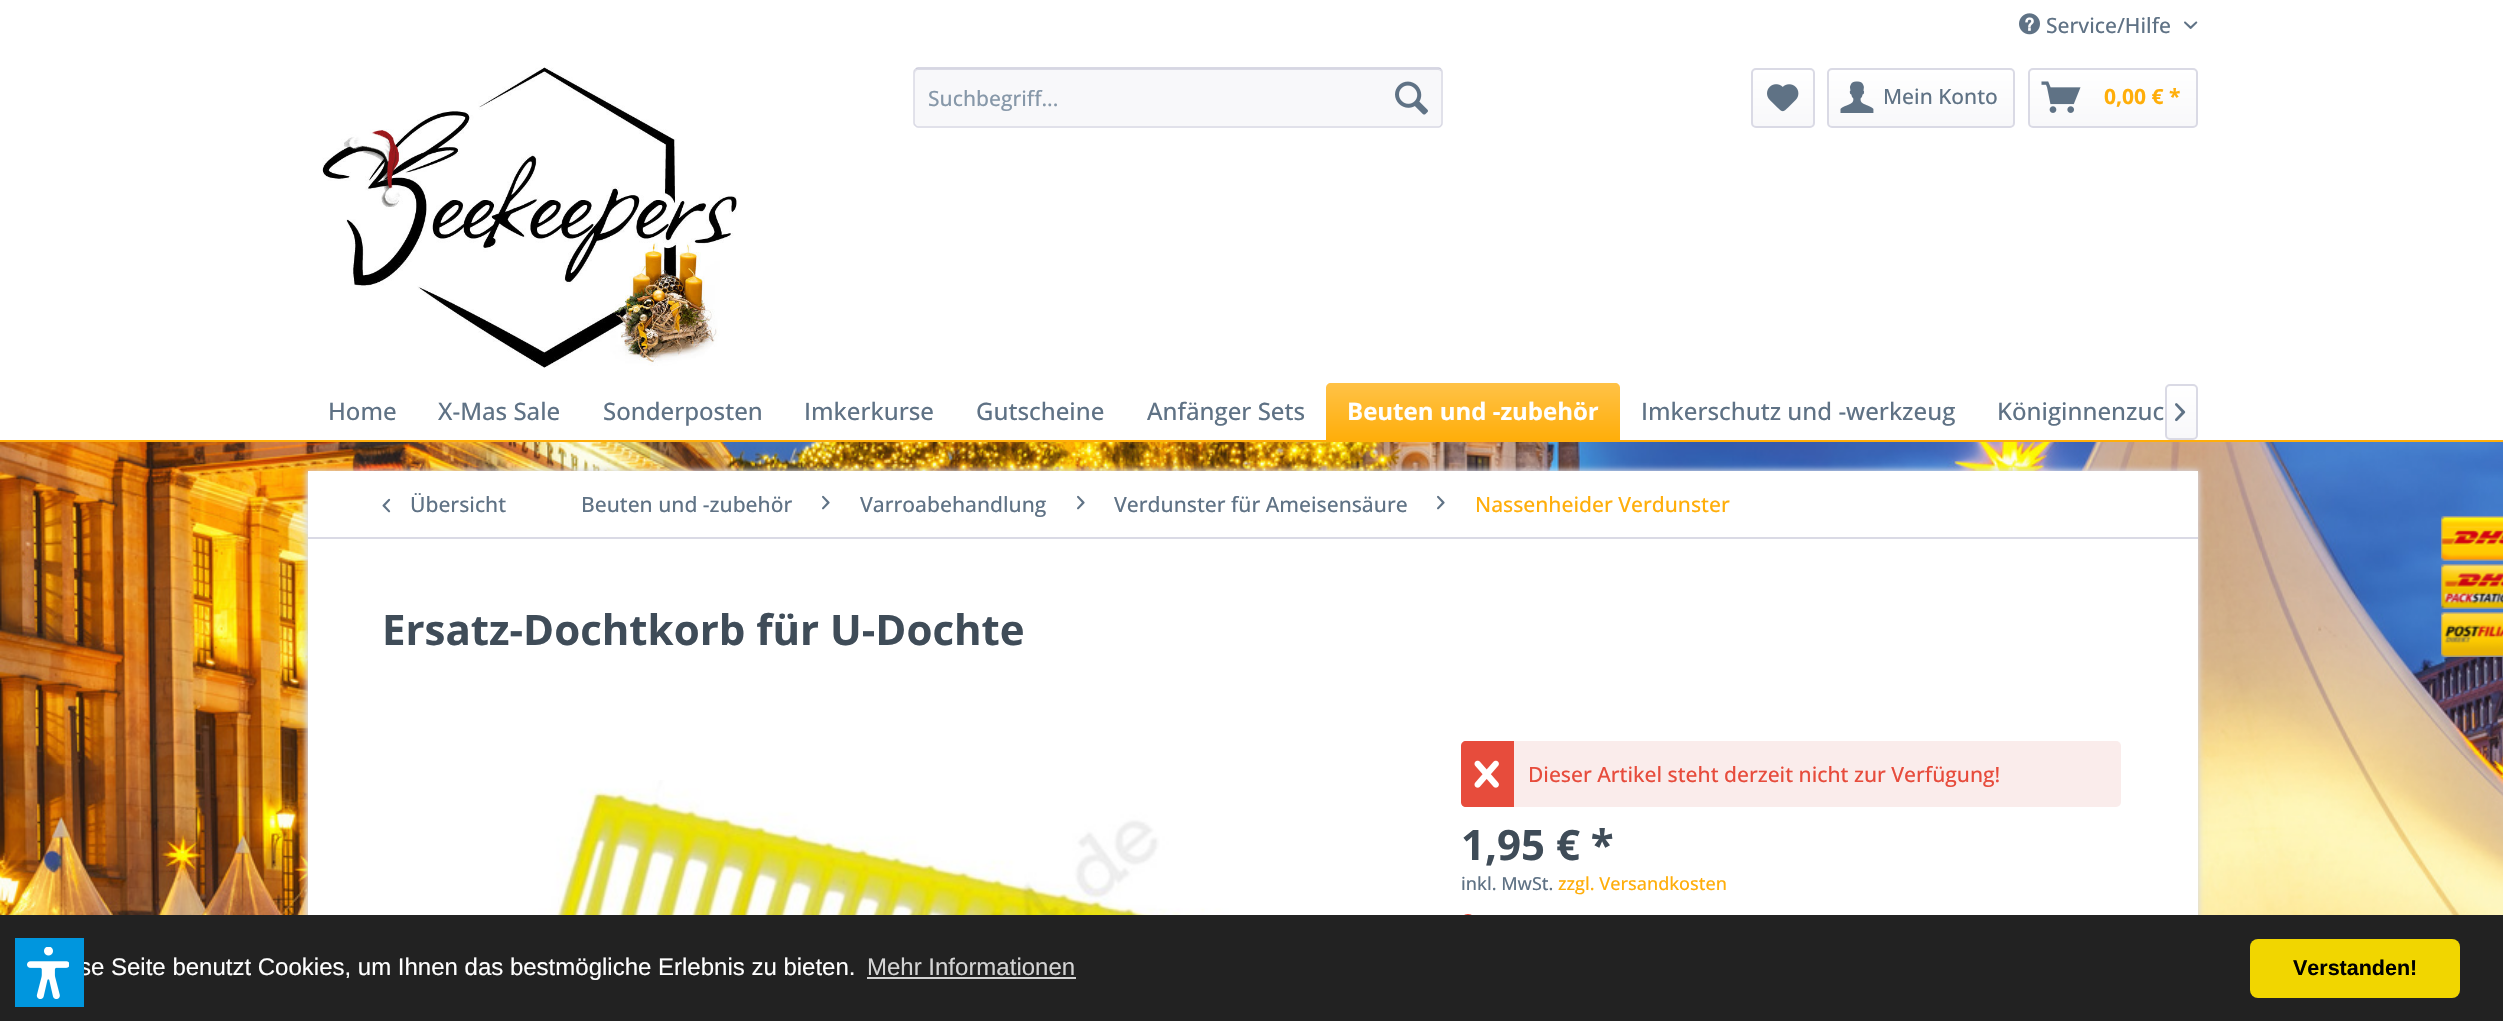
void draw(SkCanvas* c) {
SkPaint p;
p.setAntiAlias(true);
auto F=[&](const char* family, int weight, float size, bool italic = false){SkFontStyle style(weight, SkFontStyle::kNormal_Width,italic ? SkFontStyle::kItalic_Slant : SkFontStyle::kUpright_Slant);SkFont result(fontMgr->matchFamilyStyle(family, style), size);result.setSubpixel(true);return result;};
auto T=[&](const char* s, float x, float y, const SkFont& font){c->drawString(s, x, y, font, p);};
auto R=[&](float x, float y, float w, float h){c->drawRect(SkRect::MakeXYWH(x, y, w, h), p);};
auto Q=[&](float x, float y, float w, float h, float radius){c->drawRoundRect(SkRect::MakeXYWH(x, y, w, h), radius, radius, p);};
auto I=[&](const char* path, float x, float y, float w, float h){auto image = SkImages::DeferredFromEncodedData(SkData::MakeFromFileName(path));c->drawImageRect(image, SkRect::MakeXYWH(x, y, w, h), SkSamplingOptions());};
auto P=[&](const char* data, bool evenOdd = false){SkPath result = *SkParsePath::FromSVGString(data);if (evenOdd) result.setFillType(SkPathFillType::kEvenOdd);return result;};
c->clear(0xffffffff);
I("1.png",0,442,2503,473);
I("2.png",2019,13,21,22);
auto f1 = F("Open Sans",500,21);
p.setColor(0xff5f7285);
T("Service/Hilfe",2046,33,f1);
I("3.png",2184,21,14,8);
I("4.png",322,67,415,301);
p.setColor(0xfff8f8fa);
Q(914,68,529,60,5);
p.setColor(0xffdadae5);
c->drawPath(P("M918 70h520c2 0 4 2 4 4l-1-4l-2-1h-521c-3 0-3 3-3 5c0-2 1-4 3-4z"),p);
p.setStroke(true);
p.setStrokeWidth(1.5);
p.setColor(0xffcbcbdb);
c->drawPath(P("M915.5 69.5c.5-1 1.5-1.5 2.5-1.5h520.5c1 0 2 .5 2.5 1.5"),p);
p.setColor(0xffdadae5);
c->drawPath(P("M1441 69.5c1 .5 1 1.5 1 2.5v51c0 1 0 2-1 2.5c-.5 1-1.5 1.5-2.5 1.5h-520.5c-1 0-2-.5-2.5-1.5c-1-.5-1.5-1.5-1.5-2.5v-51c0-1 .5-2 1.5-2.5"),p);
p.setStroke(false);
p.setColor(0xff8798a9);
T("Suchbegriff...",928,106,f1);
I("5.png",1395,81,33,34);
{
const SkColor colors[] = {0xffffffff,0xfff8f8fa};
const float stops[] = {0,1};
const SkPoint ends[] = {{1783,69}, {1783,126}};
p.setShader(SkGradientShader::MakeLinear(ends, colors, stops, 2, SkTileMode::kClamp));
p.setAlpha(255);
}
Q(1752,69,62,57,3);
p.setStroke(true);
p.setStrokeWidth(2);
p.setShader(nullptr);
p.setColor(0xffdadae5);
c->drawRoundRect(SkRect::MakeXYWH(1752,69,62,58),4,4,p);
I("6.png",1767,84,32,28);
p.setStroke(false);
{
const SkColor colors[] = {0xffffffff,0xfff8f8fa};
const float stops[] = {0,1};
const SkPoint ends[] = {{1921,69}, {1921,126}};
p.setShader(SkGradientShader::MakeLinear(ends, colors, stops, 2, SkTileMode::kClamp));
p.setAlpha(255);
}
Q(1829,69,184,57,3);
p.setStroke(true);
p.setShader(nullptr);
p.setColor(0xffdadae5);
c->drawRoundRect(SkRect::MakeXYWH(1828,69,186,58),4,4,p);
I("7.png",1840,81,34,32);
p.setStroke(false);
p.setColor(0xff5f7285);
T("Mein Konto",1883,104,f1);
{
const SkColor colors[] = {0xffffffff,0xfff8f8fa};
const float stops[] = {0,1};
const SkPoint ends[] = {{2113,69}, {2113,126}};
p.setShader(SkGradientShader::MakeLinear(ends, colors, stops, 2, SkTileMode::kClamp));
p.setAlpha(255);
}
Q(2030,69,166,57,3);
p.setStroke(true);
p.setShader(nullptr);
p.setColor(0xffdadae5);
c->drawRoundRect(SkRect::MakeXYWH(2029,69,168,58),4,4,p);
I("8.png",2041,81,40,32);
auto f2 = F("Open Sans",700,21);
p.setStroke(false);
p.setColor(0xffffae0a);
T("0,00 € *",2104,104,f2);
R(0,440,2503,2);
auto f3 = F("Open Sans",500,24);
p.setColor(0xff5f7285);
T("Home",328,420,f3);
T("X-Mas Sale",438,420,f3);
T("Sonderposten",603,420,f3);
T("Imkerkurse",804,420,f3);
T("Gutscheine",976,420,f3);
T("Anfänger Sets",1147,420,f3);
{
const SkColor colors[] = {0xffffc247,0xffffae0a};
const float stops[] = {0,1};
const SkPoint ends[] = {{1473,383}, {1473,440}};
p.setShader(SkGradientShader::MakeLinear(ends, colors, stops, 2, SkTileMode::kClamp));
p.setAlpha(255);
}
c->drawPath(P("M1331 383h284c3 0 5 2 5 5v52h-294v-52c0-3 2-5 5-5z"),p);
auto f4 = F("Open Sans",700,24);
p.setShader(nullptr);
p.setColor(0xffffffff);
T("Beuten und -zubehör",1347,420,f4);
p.setColor(0xff5f7285);
T("Imkerschutz und -werkzeug",1641,420,f3);
T("Königinnenzuc",1997,420,f3);
{
const SkColor colors[] = {0xffffffff,0xfff8f8fa};
const float stops[] = {0,1};
const SkPoint ends[] = {{2181,386}, {2181,438}};
p.setShader(SkGradientShader::MakeLinear(ends, colors, stops, 2, SkTileMode::kClamp));
p.setAlpha(255);
}
Q(2166,386,30,52,3);
p.setStroke(true);
p.setShader(nullptr);
p.setColor(0xffdadae5);
c->drawRoundRect(SkRect::MakeXYWH(2166,385,31,54),4,4,p);
I("9.png",2175,403,11,19);
p.setStroke(false);
p.setMaskFilter(SkMaskFilter::MakeBlur(kNormal_SkBlurStyle, 3));
c->drawRect(SkRect::MakeXYWH(306,470,1893,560),p);
p.setMaskFilter(nullptr);
p.setColor(0xffffffff);
R(308,471,1890,444);
p.setColor(0xffdadae5);
R(308,537,1890,2);
I("10.png",382,498,9,15);
p.setColor(0xff5f7285);
T("Übersicht",410,512,f1);
T("Beuten und -zubehör",581,512,f1);
I("11.png",822,495,8,15);
T("Varroabehandlung",860,512,f1);
I("11.png",1077,495,8,15);
T("Verdunster für Ameisensäure",1114,512,f1);
I("11.png",1437,495,8,15);
p.setColor(0xffffae0a);
T("Nassenheider Verdunster",1475,512,f1);
auto f5 = F("Open Sans",700,42);
p.setColor(0xff3f4c58);
T("Ersatz-Dochtkorb für U-Dochte",382,645,f5);
I("12.png",524,780,778,135);
p.setColor(0xfffaeceb);
Q(1461,741,660,66,5);
p.setColor(0xffe74c3c);
c->drawPath(P("M1466 741h48v66h-48c-3 0-5-2-5-5v-56c0-3 2-5 5-5z"),p);
I("13.png",1474,760,25,28);
T("Dieser Artikel steht derzeit nicht zur Verfügung!",1528,782,f1);
p.setColor(0xff3f4c58);
T("1,95 € *",1461,860,f5);
auto f6 = F("Open Sans",500,18);
p.setColor(0xff5f7285);
T("inkl. MwSt.",1461,890,f6);
p.setColor(0xffffae0a);
T("zzgl. Versandkosten",1558,890,f6);
p.setColor(0xffe74c3c);
Q(1461,914,14,13,6.5);
I("14.png",2441,516,62,45);
I("15.png",2441,564,62,45);
I("16.png",2441,612,62,45);
p.setColor(0xff222222);
R(0,915,2503,106);
auto f7 = F("Liberation Sans",400,24);
p.setColor(0xffffffff);
T("se Seite benutzt Cookies, um Ihnen das bestmögliche Erlebnis zu bieten.",79,975,f7);
p.setColor(0xff0096de);
R(15,938,69,69);
I("17.png",27,947,42,52);
p.setColor(0xffd3d3d3);
T("Mehr Informationen",867,975,f7);
R(867,977,209,2);
p.setColor(0xfff1d600);
Q(2250,939,210,59,8);
auto f8 = F("Liberation Sans",700,21.5);
p.setColor(0xff000000);
T("Verstanden!",2293,975,f8);
}
